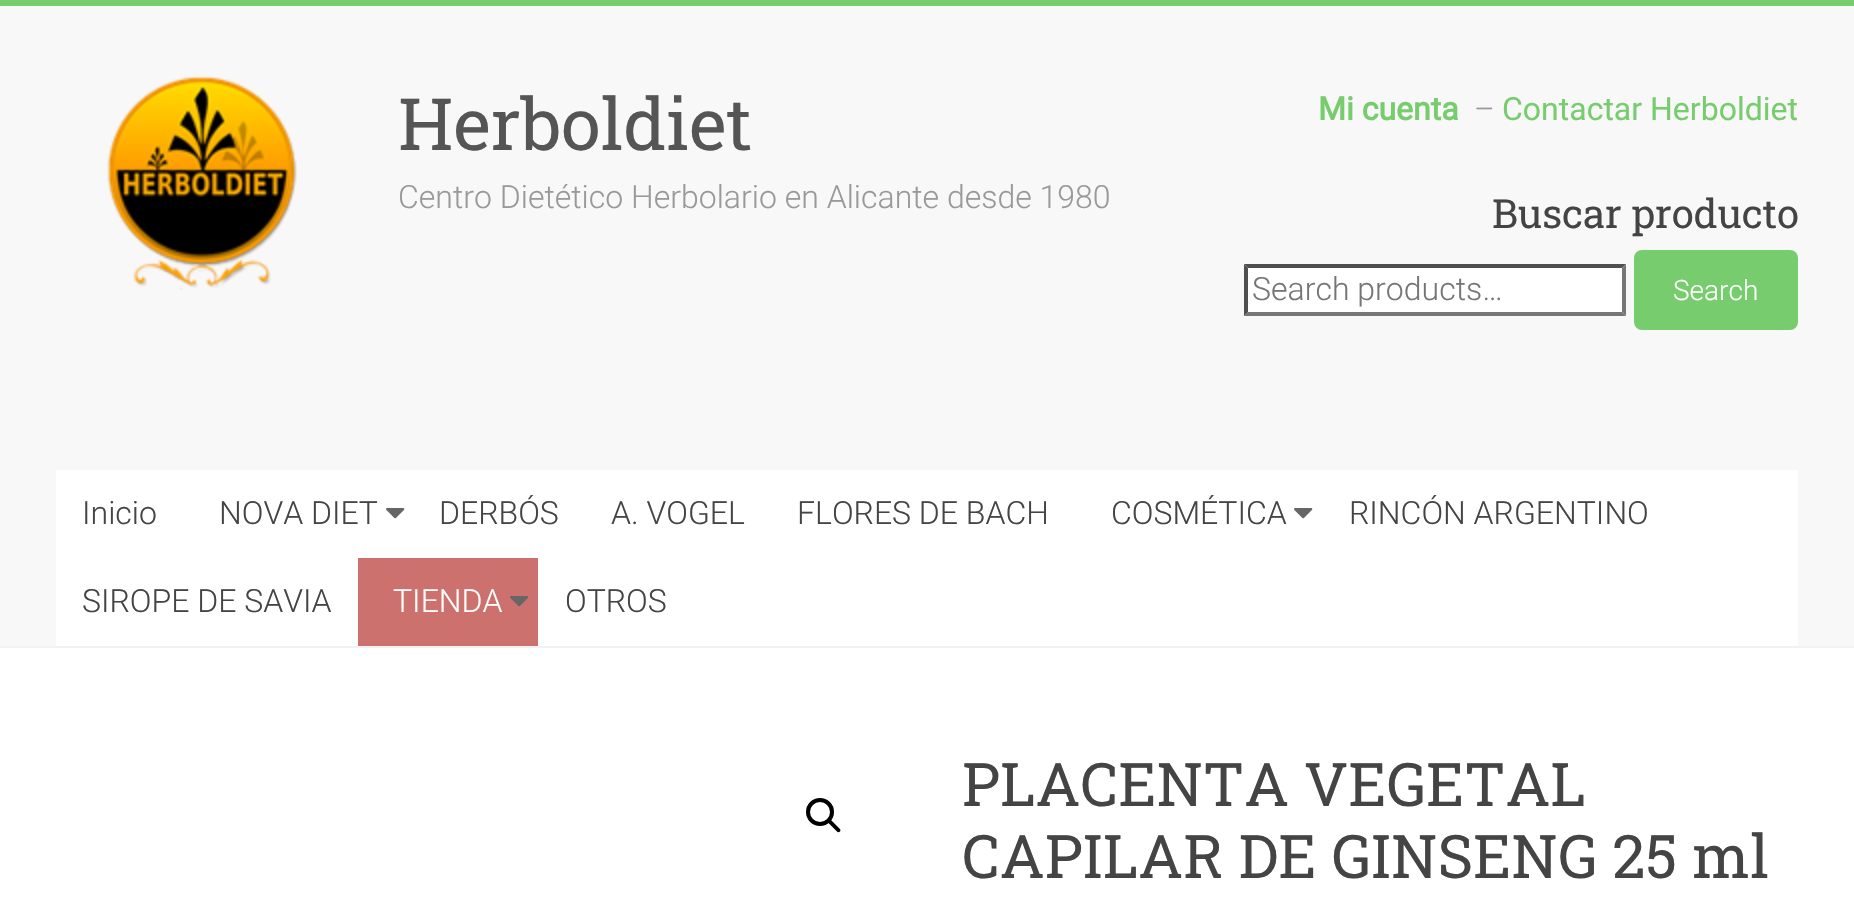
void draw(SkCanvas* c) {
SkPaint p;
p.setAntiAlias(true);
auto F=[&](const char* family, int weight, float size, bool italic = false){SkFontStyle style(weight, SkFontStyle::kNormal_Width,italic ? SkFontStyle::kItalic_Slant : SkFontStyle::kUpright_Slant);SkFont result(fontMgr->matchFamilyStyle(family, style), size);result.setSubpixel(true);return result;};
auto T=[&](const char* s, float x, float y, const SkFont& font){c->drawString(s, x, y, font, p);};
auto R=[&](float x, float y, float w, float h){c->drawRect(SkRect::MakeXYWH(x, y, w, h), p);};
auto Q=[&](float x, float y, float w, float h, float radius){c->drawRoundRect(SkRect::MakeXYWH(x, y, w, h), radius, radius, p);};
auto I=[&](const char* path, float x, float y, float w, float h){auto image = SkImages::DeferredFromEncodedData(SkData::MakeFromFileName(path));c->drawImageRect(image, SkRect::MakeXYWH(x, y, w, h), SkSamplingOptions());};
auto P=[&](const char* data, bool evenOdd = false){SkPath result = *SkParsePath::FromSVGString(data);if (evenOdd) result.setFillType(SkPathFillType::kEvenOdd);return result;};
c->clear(0xffffffff);
p.setColor(0xff77cc6d);
R(0,0,1854,6);
p.setColor(0xfff8f8f8);
R(0,6,1854,640);
p.setColor(0xfff2f2f2);
R(0,646,1854,2);
I("1.png",107,75,190,215);
auto f1 = F("Roboto Slab",400,72);
p.setColor(0xff555555);
T("Herboldiet",398,150,f1);
auto f2 = F("Roboto",300,32);
p.setColor(0xff999999);
T("Centro Dietético Herbolario en Alicante desde 1980",398,208,f2);
auto f3 = F("Roboto",700,32);
p.setColor(0xff77cc6d);
T("Mi cuenta",1318,120,f3);
p.setColor(0xff999999);
T("–",1474,120,f2);
auto f4 = F("Roboto",400,32);
p.setColor(0xff77cc6d);
T("Contactar Herboldiet",1502,120,f4);
auto f5 = F("Roboto Slab",400,40);
p.setColor(0xff444444);
T("Buscar producto",1492,228,f5);
p.setColor(0xffffffff);
R(1244,264,382,52);
p.setColor(0xff4f4f4f);
c->drawPath(P("M1244 264h382l-4 4h-374z"),p);
p.setColor(0xff767676);
c->drawPath(P("M1626 264v52l-4-4v-44z"),p);
c->drawPath(P("M1626 316h-382l4-4h374z"),p);
p.setColor(0xff4f4f4f);
c->drawPath(P("M1244 316v-52l4 4v44z"),p);
p.setColor(0xff757575);
T("Search products…",1252,300,f2);
p.setColor(0xff77cc6d);
Q(1634,250,164,80,8);
auto f6 = F("Roboto",300,28);
p.setColor(0xffffffff);
T("Search",1673,300,f6);
R(56,470,1742,176);
p.setColor(0xff444444);
T("Inicio",82,524,f2);
T("NOVA DIET",219,524,f2);
I("2.png",386,508,19,11);
T("DERBÓS",439,524,f2);
T("A. VOGEL",611,524,f2);
T("FLORES DE BACH",797,524,f2);
T("COSMÉTICA",1111,524,f2);
I("2.png",1294,508,19,11);
T("RINCÓN ARGENTINO",1349,524,f2);
T("SIROPE DE SAVIA",82,612,f2);
p.setColor(0xffcc716d);
R(358,558,180,88);
p.setColor(0xffffffff);
T("TIENDA",393,612,f2);
I("3.png",510,596,19,11);
p.setColor(0xff444444);
T("OTROS",565,612,f2);
p.setStroke(true);
p.setStrokeWidth(4);
p.setColor(0xff000000);
c->drawCircle(820,812,12,p);
p.setStroke(false);
c->drawPath(P("M828.5 820.5c.5-1 2-1 3 0l8.5 8.5c.5 .5 .5 2 0 2.5c-1 1-2.5 1-3 0l-8.5-8.5c-1-.5-1-2 0-2.5z"),p);
auto f7 = F("Roboto Slab",400,60);
p.setColor(0xff444444);
T("PLACENTA VEGETAL",962,806,f7);
T("CAPILAR DE GINSENG 25 ml",962,878,f7);
}
